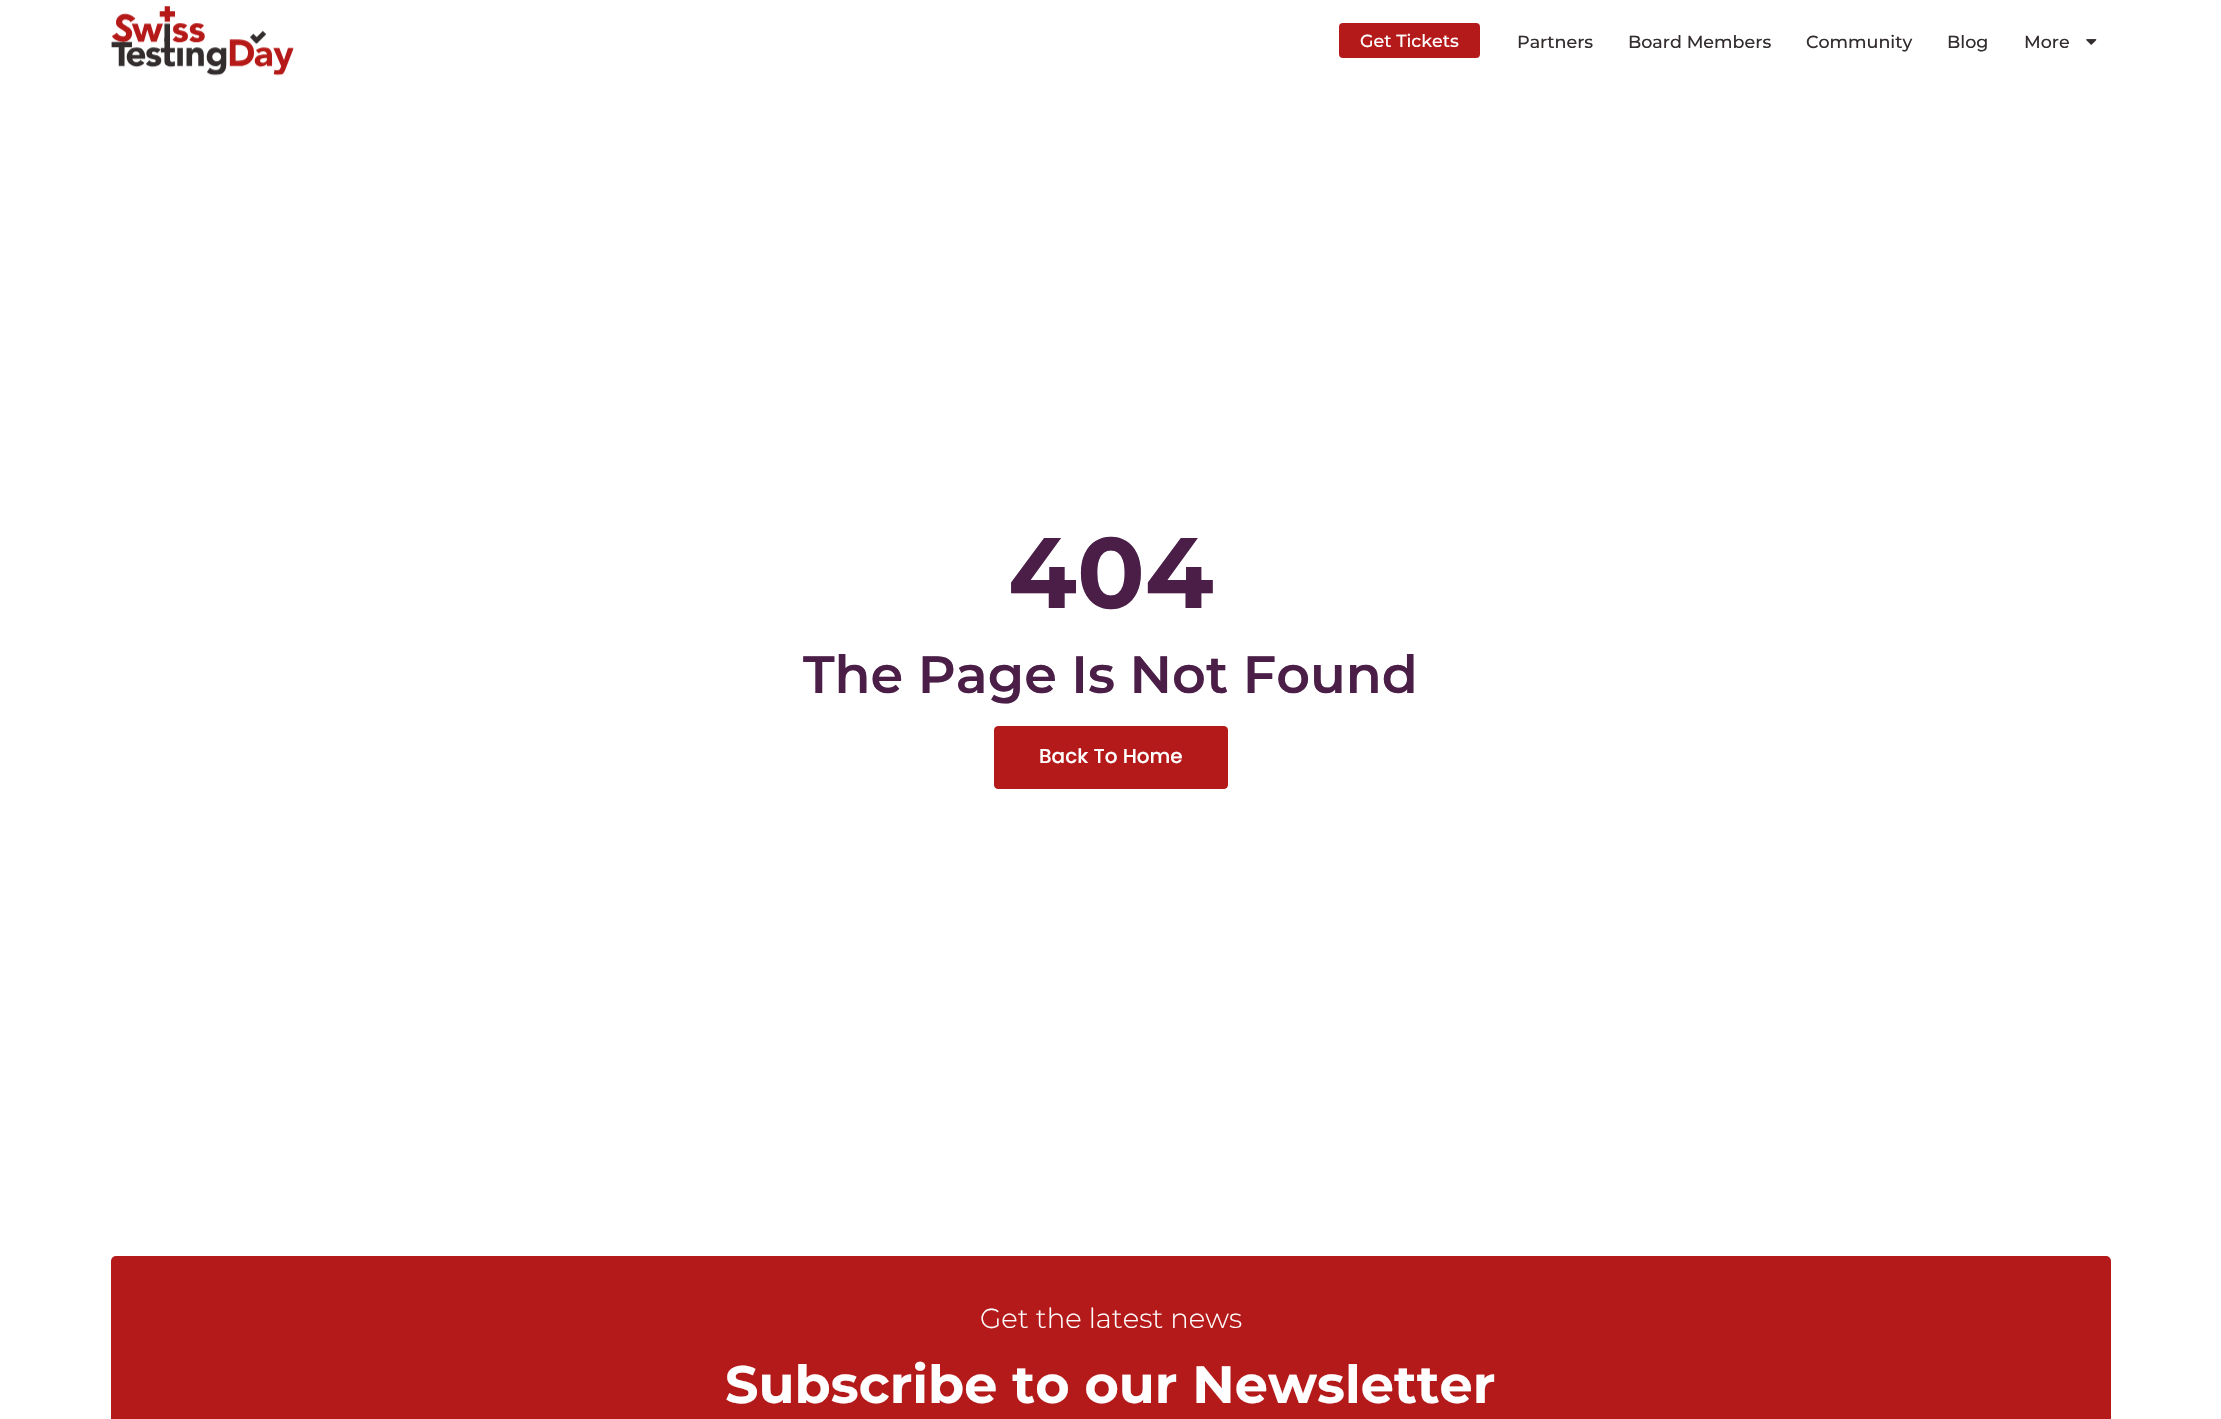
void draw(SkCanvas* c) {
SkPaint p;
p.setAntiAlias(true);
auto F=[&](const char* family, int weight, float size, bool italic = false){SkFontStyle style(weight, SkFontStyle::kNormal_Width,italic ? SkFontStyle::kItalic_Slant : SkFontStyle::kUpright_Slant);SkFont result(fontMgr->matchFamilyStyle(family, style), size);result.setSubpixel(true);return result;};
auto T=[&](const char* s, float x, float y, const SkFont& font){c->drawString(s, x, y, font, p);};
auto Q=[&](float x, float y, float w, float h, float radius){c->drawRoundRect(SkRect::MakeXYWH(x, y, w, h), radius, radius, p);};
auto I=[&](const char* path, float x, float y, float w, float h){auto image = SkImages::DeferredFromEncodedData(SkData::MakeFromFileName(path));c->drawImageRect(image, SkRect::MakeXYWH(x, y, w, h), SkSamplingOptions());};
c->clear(0xffffffff);
I("1.png",111,6,183,70);
p.setColor(0xffb51a1a);
c->drawRoundRect(SkRect::MakeXYWH(1340.5,24.5,138,32),2.5,2.5,p);
p.setStroke(true);
p.setStrokeWidth(3);
c->drawRoundRect(SkRect::MakeXYWH(1340.5,24.5,138,32),2.5,2.5,p);
auto f1 = F("Montserrat",500,17.5);
p.setStroke(false);
p.setColor(0xffffffff);
T("Get Tickets",1360,47,f1);
p.setColor(0xff332d2e);
T("Partners",1517,48,f1);
T("Board Members",1628,48,f1);
T("Community",1806,48,f1);
T("Blog",1947,48,f1);
T("More",2024,48,f1);
I("2.png",2086,39,11,6);
auto f2 = F("Montserrat",700,100);
p.setColor(0xff4a1e47);
T("404",1008,608,f2);
auto f3 = F("Montserrat",600,52.5);
T("The Page Is Not Found",803,693,f3);
p.setColor(0xffb51a1a);
c->drawRoundRect(SkRect::MakeXYWH(994.5,726.5,233,62),3.5,3.5,p);
p.setStroke(true);
p.setStrokeWidth(1);
c->drawRoundRect(SkRect::MakeXYWH(994.5,726.5,233,62),3.5,3.5,p);
auto f4 = F("Poppins",500,20);
p.setStroke(false);
p.setColor(0xffffffff);
T("Back To Home",1039,763,f4);
p.setColor(0xffb51a1a);
Q(111,1256,2000,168,5);
auto f5 = F("Montserrat",300,27.5);
p.setColor(0xffffffff);
T("Get the latest news",980,1328,f5);
auto f6 = F("Montserrat",700,52.5);
T("Subscribe to our Newsletter",725,1403,f6);
}
